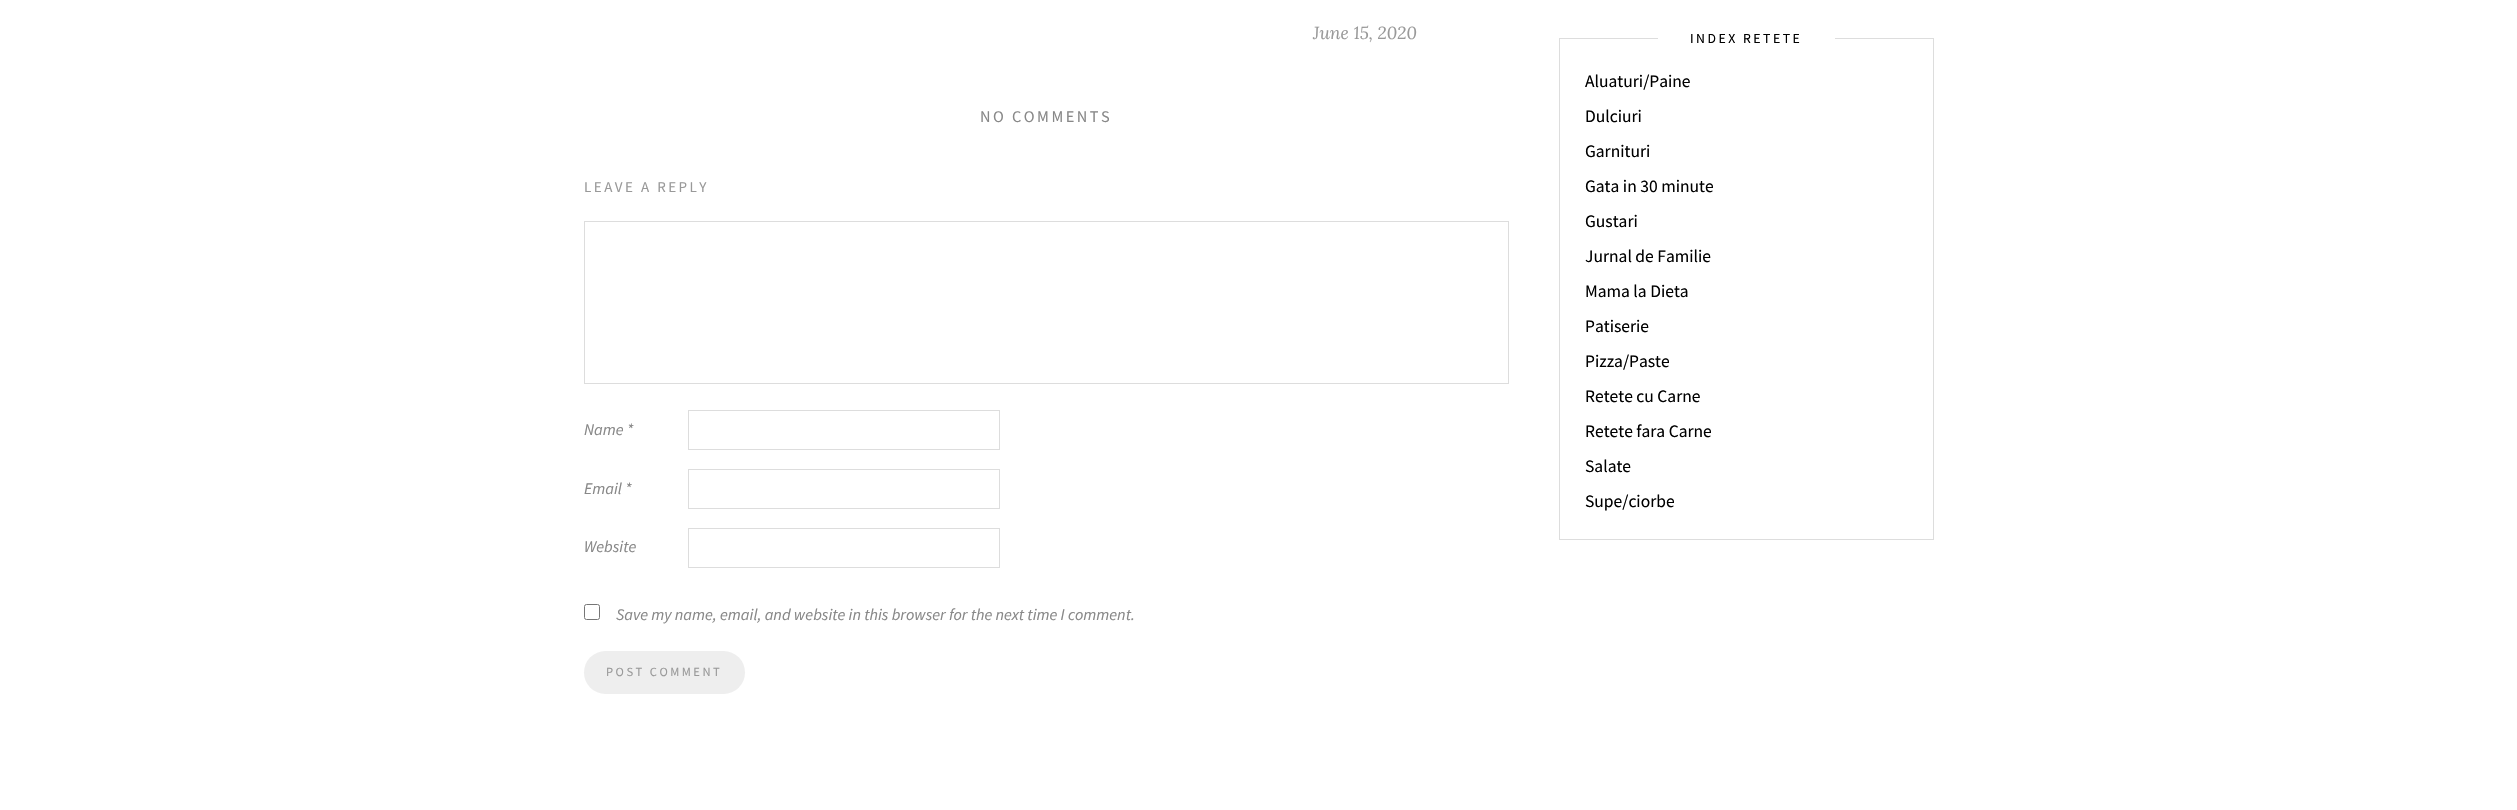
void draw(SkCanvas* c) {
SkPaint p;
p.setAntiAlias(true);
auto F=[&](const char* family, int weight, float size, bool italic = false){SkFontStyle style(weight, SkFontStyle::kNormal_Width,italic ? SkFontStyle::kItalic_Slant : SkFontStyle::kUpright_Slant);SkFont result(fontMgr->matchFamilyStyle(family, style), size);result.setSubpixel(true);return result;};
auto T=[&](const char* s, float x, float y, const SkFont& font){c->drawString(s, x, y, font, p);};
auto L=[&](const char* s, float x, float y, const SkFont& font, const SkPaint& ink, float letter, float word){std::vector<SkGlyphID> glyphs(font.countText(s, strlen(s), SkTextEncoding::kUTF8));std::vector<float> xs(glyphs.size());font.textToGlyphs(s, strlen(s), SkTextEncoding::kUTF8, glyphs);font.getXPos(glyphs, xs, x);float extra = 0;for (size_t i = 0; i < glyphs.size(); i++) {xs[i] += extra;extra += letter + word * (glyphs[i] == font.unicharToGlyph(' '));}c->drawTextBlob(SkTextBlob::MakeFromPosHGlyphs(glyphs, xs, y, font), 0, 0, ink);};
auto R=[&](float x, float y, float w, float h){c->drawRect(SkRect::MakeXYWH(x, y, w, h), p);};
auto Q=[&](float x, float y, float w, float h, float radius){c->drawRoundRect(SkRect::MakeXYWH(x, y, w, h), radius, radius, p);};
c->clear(0xffffffff);
auto f1 = F("Lora",400,17.5,true);
p.setColor(0xff999999);
T("June 15, 2020",1313,39,f1);
auto f2 = F("Source Sans Pro",400,16.25);
p.setColor(0xff888888);
L("NO COMMENTS",980,122,f2,p,2.5,0);
auto f3 = F("Source Sans Pro",400,15);
p.setColor(0xff999999);
L("LEAVE A REPLY",584,192,f3,p,2.5,0);
p.setStroke(true);
p.setStrokeWidth(1);
p.setColor(0xffdddddd);
c->drawRect(SkRect::MakeXYWH(584.5,221.5,924,162),p);
auto f4 = F("Source Sans Pro",400,16.25,true);
p.setStroke(false);
p.setColor(0xff888888);
T("Name *",584,435,f4);
p.setStroke(true);
p.setColor(0xffdddddd);
c->drawRect(SkRect::MakeXYWH(688.5,410.5,311,39),p);
p.setStroke(false);
p.setColor(0xff888888);
T("Email *",584,494,f4);
p.setStroke(true);
p.setColor(0xffdddddd);
c->drawRect(SkRect::MakeXYWH(688.5,469.5,311,39),p);
p.setStroke(false);
p.setColor(0xff888888);
T("Website",584,552,f4);
p.setStroke(true);
p.setColor(0xffdddddd);
c->drawRect(SkRect::MakeXYWH(688.5,528.5,311,39),p);
p.setColor(0xff767676);
c->drawRoundRect(SkRect::MakeXYWH(584.5,604.5,15,15),2,2,p);
p.setStroke(false);
p.setColor(0xff888888);
T("Save my name, email, and website in this browser for the next time I comment.",616,620,f4);
p.setColor(0xffeeeeee);
Q(584,651,161,43,21.5);
auto f5 = F("Source Sans Pro",400,12.5);
p.setColor(0xff999999);
L("POST COMMENT",606,676,f5,p,2.5,0);
p.setStroke(true);
p.setColor(0xffdddddd);
c->drawRect(SkRect::MakeXYWH(1559.5,38.5,374,501),p);
p.setStroke(false);
p.setColor(0xffffffff);
R(1585,38,323,1);
p.setColor(0xffdddddd);
R(1585,38,73,1);
auto f6 = F("Source Sans Pro",400,13.75);
p.setColor(0xff000000);
L("INDEX RETETE",1690,43,f6,p,2.5,0);
p.setColor(0xffdddddd);
R(1835,38,73,1);
auto f7 = F("Source Sans Pro",400,17.5);
p.setColor(0xff000000);
T("Aluaturi/Paine",1585,87,f7);
T("Dulciuri",1585,122,f7);
T("Garnituri",1585,157,f7);
T("Gata in 30 minute",1585,192,f7);
T("Gustari",1585,227,f7);
T("Jurnal de Familie",1585,262,f7);
T("Mama la Dieta",1585,297,f7);
T("Patiserie",1585,332,f7);
T("Pizza/Paste",1585,367,f7);
T("Retete cu Carne",1585,402,f7);
T("Retete fara Carne",1585,437,f7);
T("Salate",1585,472,f7);
T("Supe/ciorbe",1585,507,f7);
}
